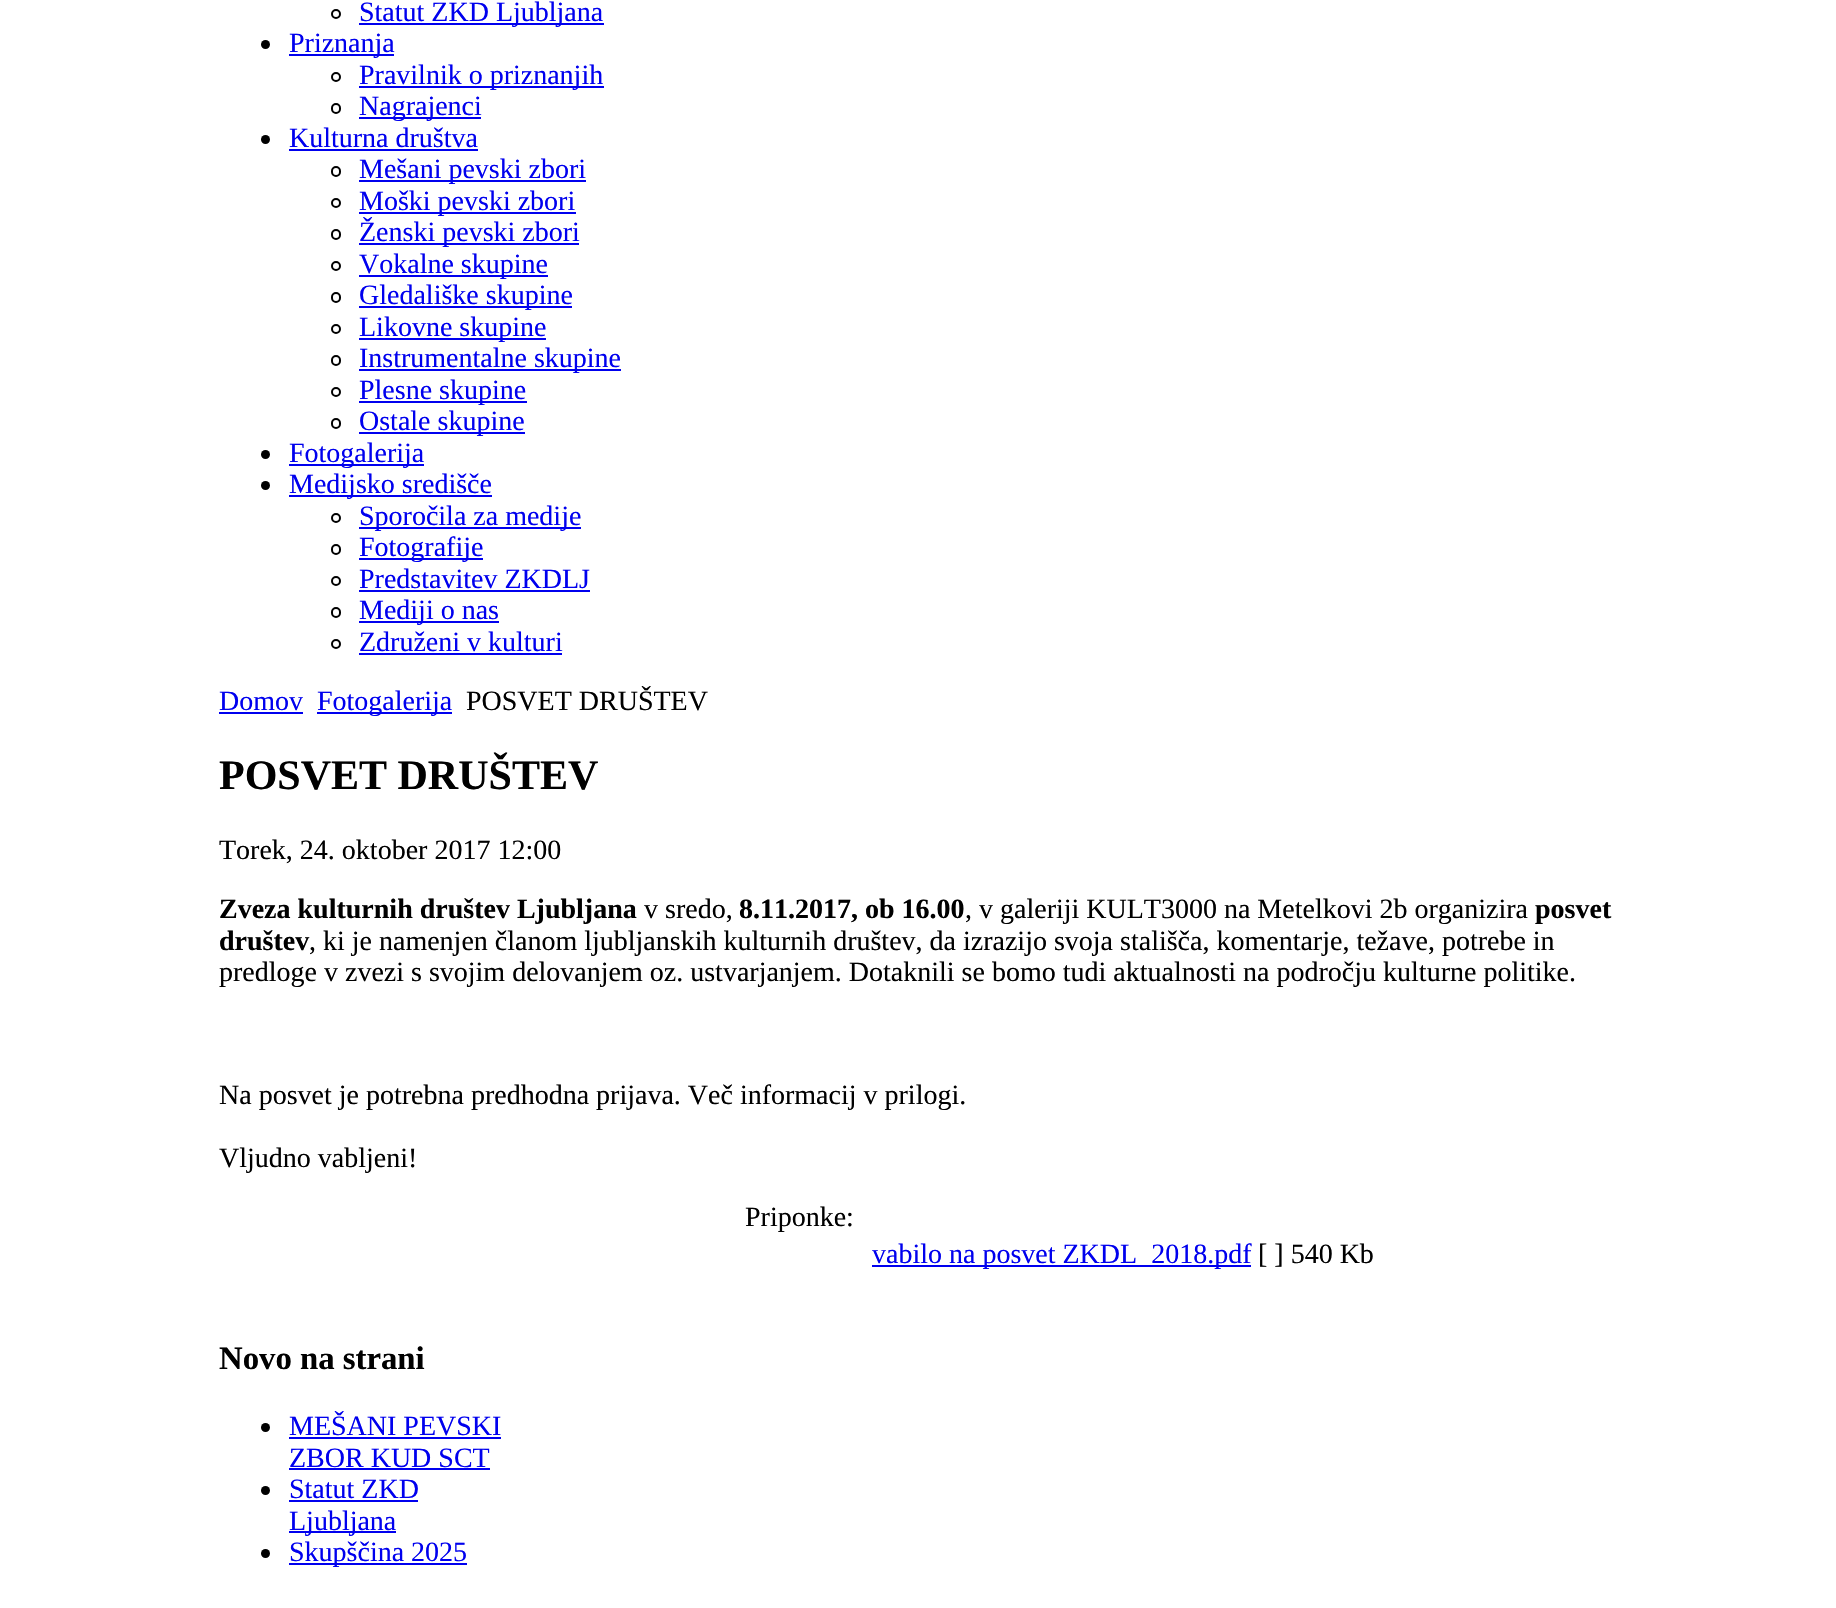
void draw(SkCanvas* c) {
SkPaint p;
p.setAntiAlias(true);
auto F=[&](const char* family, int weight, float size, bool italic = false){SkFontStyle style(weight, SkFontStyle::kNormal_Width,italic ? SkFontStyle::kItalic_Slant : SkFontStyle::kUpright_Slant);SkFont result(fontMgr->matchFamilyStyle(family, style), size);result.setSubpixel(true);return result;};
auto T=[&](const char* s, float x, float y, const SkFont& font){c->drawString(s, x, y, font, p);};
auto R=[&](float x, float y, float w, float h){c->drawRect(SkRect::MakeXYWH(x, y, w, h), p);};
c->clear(0xffffffff);
p.setStroke(true);
p.setStrokeWidth(2);
p.setColor(0xff000000);
c->drawCircle(336,14,4,p);
p.setStroke(false);
p.setColor(0xff0000ee);
R(359,23,245,2);
auto f1 = F("Liberation Serif",400,28);
T("Statut ZKD Ljubljana",359,21,f1);
p.setColor(0xff000000);
c->drawCircle(265.5,44.5,4.5,p);
p.setColor(0xff0000ee);
R(289,54,105,2);
T("Priznanja",289,52,f1);
p.setStroke(true);
p.setColor(0xff000000);
c->drawCircle(336,77,4,p);
p.setStroke(false);
p.setColor(0xff0000ee);
R(359,86,245,2);
T("Pravilnik o priznanjih",359,84,f1);
p.setStroke(true);
p.setColor(0xff000000);
c->drawRoundRect(SkRect::MakeXYWH(332,104,8,9),4,4,p);
p.setStroke(false);
p.setColor(0xff0000ee);
R(359,117,122,2);
T("Nagrajenci",359,115,f1);
p.setColor(0xff000000);
c->drawCircle(265.5,139.5,4.5,p);
p.setColor(0xff0000ee);
T("Kulturna društva",289,147,f1);
R(289,149,189,2);
p.setStroke(true);
p.setColor(0xff000000);
c->drawRoundRect(SkRect::MakeXYWH(332,167,8,9),4,4,p);
p.setStroke(false);
p.setColor(0xff0000ee);
R(359,180,227,2);
T("Mešani pevski zbori",359,178,f1);
p.setStroke(true);
p.setColor(0xff000000);
c->drawCircle(336,203,4,p);
p.setStroke(false);
p.setColor(0xff0000ee);
R(359,212,217,2);
T("Moški pevski zbori",359,210,f1);
p.setStroke(true);
p.setColor(0xff000000);
c->drawRoundRect(SkRect::MakeXYWH(332,230,8,9),4,4,p);
p.setStroke(false);
p.setColor(0xff0000ee);
R(359,243,220,2);
T("Ženski pevski zbori",359,241,f1);
p.setStroke(true);
p.setColor(0xff000000);
c->drawCircle(336,266,4,p);
p.setStroke(false);
p.setColor(0xff0000ee);
R(359,275,189,2);
T("Vokalne skupine",359,273,f1);
p.setStroke(true);
p.setColor(0xff000000);
c->drawRoundRect(SkRect::MakeXYWH(332,293,8,9),4,4,p);
p.setStroke(false);
p.setColor(0xff0000ee);
R(359,306,213,2);
T("Gledališke skupine",359,304,f1);
p.setStroke(true);
p.setColor(0xff000000);
c->drawCircle(336,329,4,p);
p.setStroke(false);
p.setColor(0xff0000ee);
R(359,338,187,2);
T("Likovne skupine",359,336,f1);
p.setStroke(true);
p.setColor(0xff000000);
c->drawRoundRect(SkRect::MakeXYWH(332,356,8,9),4,4,p);
p.setStroke(false);
p.setColor(0xff0000ee);
R(359,369,262,2);
T("Instrumentalne skupine",359,367,f1);
p.setStroke(true);
p.setColor(0xff000000);
c->drawCircle(336,392,4,p);
p.setStroke(false);
p.setColor(0xff0000ee);
R(359,401,168,2);
T("Plesne skupine",359,399,f1);
p.setStroke(true);
p.setColor(0xff000000);
c->drawRoundRect(SkRect::MakeXYWH(332,419,8,9),4,4,p);
p.setStroke(false);
p.setColor(0xff0000ee);
R(359,432,166,2);
T("Ostale skupine",359,430,f1);
p.setColor(0xff000000);
c->drawCircle(265.5,454.5,4.5,p);
p.setColor(0xff0000ee);
R(289,464,135,2);
T("Fotogalerija",289,462,f1);
p.setColor(0xff000000);
c->drawCircle(265.5,485.5,4.5,p);
p.setColor(0xff0000ee);
R(289,495,203,2);
T("Medijsko središče",289,493,f1);
p.setStroke(true);
p.setColor(0xff000000);
c->drawCircle(336,518,4,p);
p.setStroke(false);
p.setColor(0xff0000ee);
R(359,527,222,2);
T("Sporočila za medije",359,525,f1);
p.setStroke(true);
p.setColor(0xff000000);
c->drawRoundRect(SkRect::MakeXYWH(332,545,8,9),4,4,p);
p.setStroke(false);
p.setColor(0xff0000ee);
R(359,558,124,2);
T("Fotografije",359,556,f1);
p.setStroke(true);
p.setColor(0xff000000);
c->drawCircle(336,581,4,p);
p.setStroke(false);
p.setColor(0xff0000ee);
T("Predstavitev ZKDLJ",359,588,f1);
R(359,590,231,2);
p.setStroke(true);
p.setColor(0xff000000);
c->drawRoundRect(SkRect::MakeXYWH(332,608,8,9),4,4,p);
p.setStroke(false);
p.setColor(0xff0000ee);
R(359,621,140,2);
T("Mediji o nas",359,619,f1);
p.setStroke(true);
p.setColor(0xff000000);
c->drawCircle(336,644,4,p);
p.setStroke(false);
p.setColor(0xff0000ee);
T("Združeni v kulturi",359,651,f1);
R(359,653,203,2);
T("Domov",219,710,f1);
R(219,712,84,2);
R(317,712,135,2);
T("Fotogalerija",317,710,f1);
p.setColor(0xff000000);
T("POSVET DRUŠTEV",466,710,f1);
auto f2 = F("Liberation Serif",700,42);
T("POSVET DRUŠTEV",219,789,f2);
T("Torek, 24. oktober 2017 12:00",219,859,f1);
auto f3 = F("Liberation Serif",700,28);
T("Zveza kulturnih društev Ljubljana",219,918,f3);
T("v sredo,",644,918,f1);
T("8.11.2017, ob 16.00",739,918,f3);
T(", v galeriji KULT3000 na Metelkovi 2b organizira",965,918,f1);
T("posvet",1535,918,f3);
T("društev",219,950,f3);
T(", ki je namenjen članom ljubljanskih kulturnih društev, da izrazijo svoja stališča, komentarje, težave, potrebe in",309,950,f1);
T("predloge v zvezi s svojim delovanjem oz. ustvarjanjem. Dotaknili se bomo tudi aktualnosti na področju kulturne politike.",219,981,f1);
T("Na posvet je potrebna predhodna prijava. Več informacij v prilogi.",219,1104,f1);
T("Vljudno vabljeni!",219,1167,f1);
T("Priponke:",745,1226,f1);
p.setColor(0xff0000ee);
R(872,1265,379,2);
T("vabilo na posvet ZKDL_2018.pdf",872,1263,f1);
p.setColor(0xff000000);
T("[ ] 540 Kb",1258,1263,f1);
auto f4 = F("Liberation Serif",700,32.75);
T("Novo na strani",219,1369,f4);
c->drawCircle(265.5,1427.5,4.5,p);
p.setColor(0xff0000ee);
T("MEŠANI PEVSKI",289,1435,f1);
R(289,1437,212,2);
T("ZBOR KUD SCT",289,1467,f1);
R(289,1468,201,2);
p.setColor(0xff000000);
c->drawCircle(265.5,1490.5,4.5,p);
p.setColor(0xff0000ee);
T("Statut ZKD",289,1498,f1);
R(289,1500,129,2);
R(289,1531,107,2);
T("Ljubljana",289,1530,f1);
p.setColor(0xff000000);
c->drawCircle(265.5,1553.5,4.5,p);
p.setColor(0xff0000ee);
R(289,1563,178,2);
T("Skupščina 2025",289,1561,f1);
}
